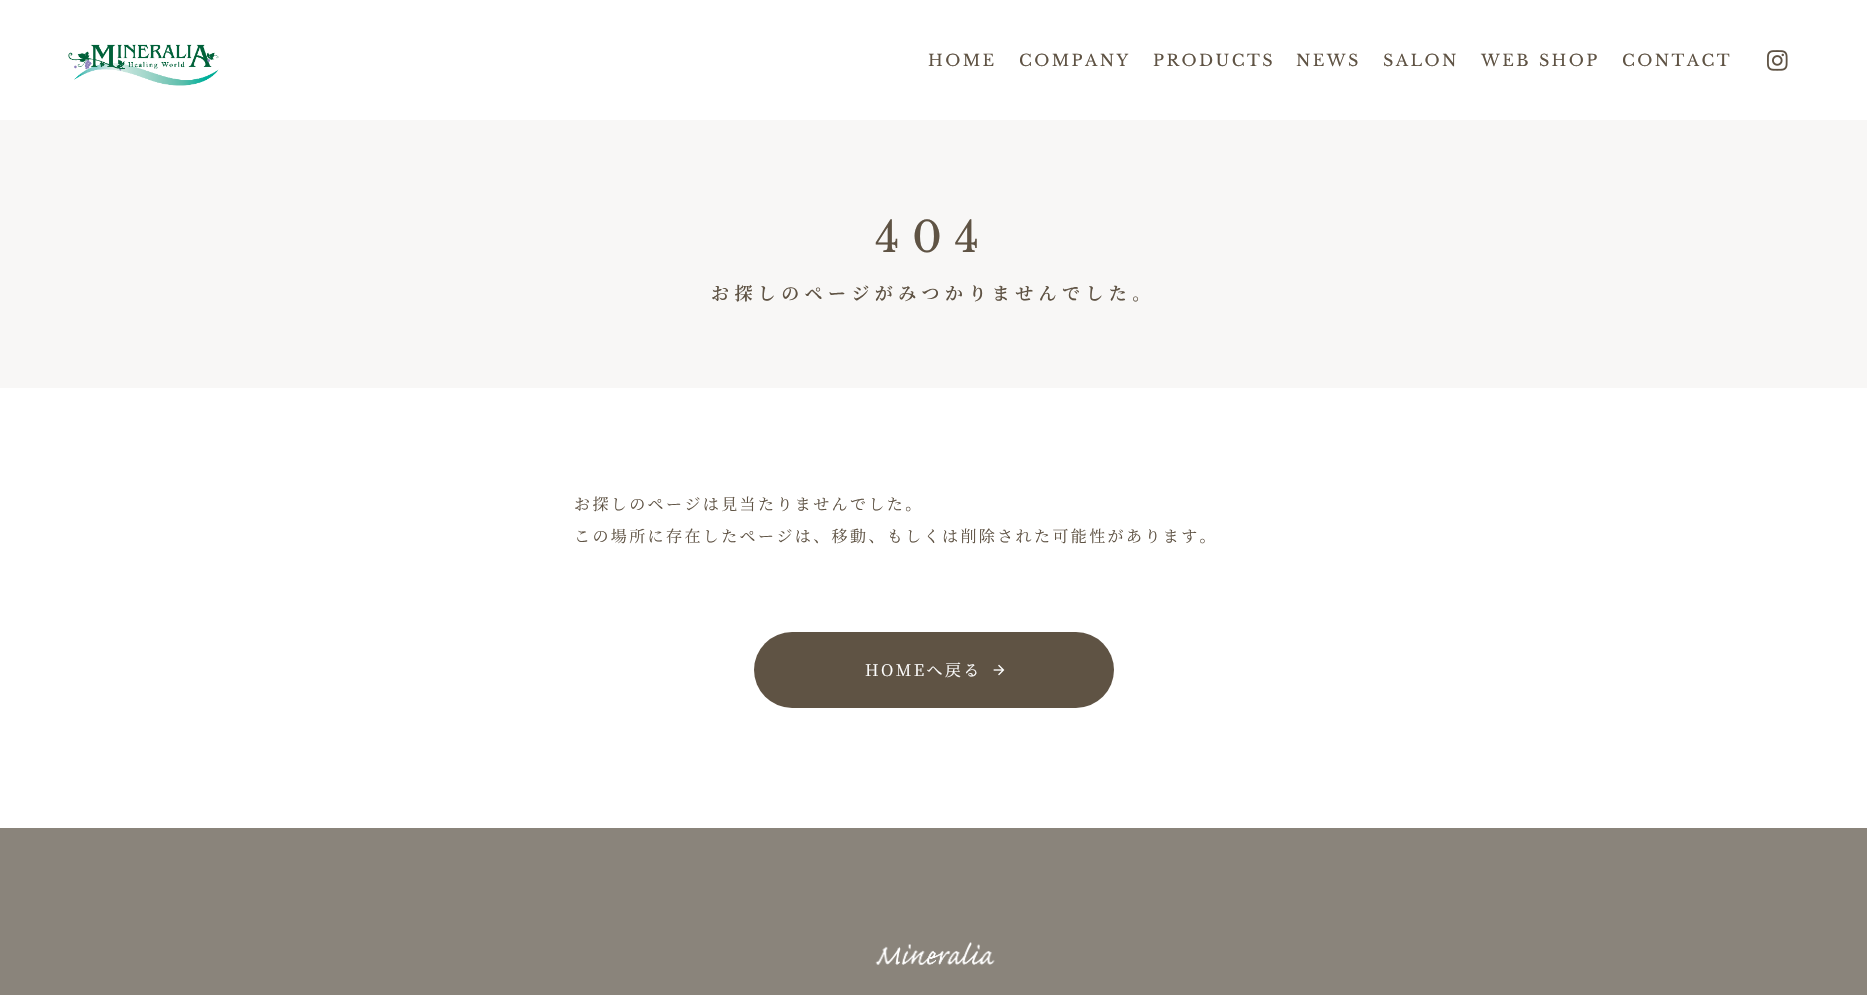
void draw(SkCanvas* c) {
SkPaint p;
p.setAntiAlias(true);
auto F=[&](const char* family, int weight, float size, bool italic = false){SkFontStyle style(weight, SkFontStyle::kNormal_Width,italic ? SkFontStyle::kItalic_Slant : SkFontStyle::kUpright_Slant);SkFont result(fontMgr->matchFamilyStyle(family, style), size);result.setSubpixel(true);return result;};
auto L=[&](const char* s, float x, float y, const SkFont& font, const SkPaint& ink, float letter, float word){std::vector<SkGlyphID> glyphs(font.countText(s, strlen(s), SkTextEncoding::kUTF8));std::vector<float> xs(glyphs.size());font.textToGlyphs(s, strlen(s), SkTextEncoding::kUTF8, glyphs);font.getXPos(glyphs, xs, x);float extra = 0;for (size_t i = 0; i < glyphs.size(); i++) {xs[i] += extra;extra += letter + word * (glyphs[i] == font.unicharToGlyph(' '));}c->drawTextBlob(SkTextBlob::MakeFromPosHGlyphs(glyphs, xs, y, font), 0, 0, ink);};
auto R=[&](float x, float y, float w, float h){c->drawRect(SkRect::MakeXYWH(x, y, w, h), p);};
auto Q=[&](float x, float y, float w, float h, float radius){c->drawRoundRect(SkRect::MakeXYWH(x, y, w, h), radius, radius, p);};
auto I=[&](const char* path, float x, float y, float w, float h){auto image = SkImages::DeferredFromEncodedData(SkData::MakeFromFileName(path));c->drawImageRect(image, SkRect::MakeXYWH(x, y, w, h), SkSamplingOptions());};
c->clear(0xffffffff);
I("1.png",68,44,151,42);
auto f1 = F("Libre Baskerville",400,16);
p.setColor(0xff5f5344);
L("HOME",928,66,f1,p,2.4,0);
L("COMPANY",1019,66,f1,p,2.4,0);
L("PRODUCTS",1153,66,f1,p,2.4,0);
L("NEWS",1296,66,f1,p,2.4,0);
L("SALON",1383,66,f1,p,2.4,0);
L("WEB SHOP",1481,66,f1,p,2.4,1);
L("CONTACT",1622,66,f1,p,2.4,0);
I("2.png",1767,50,21,21);
p.setColor(0xfff8f7f6);
R(0,120,1867,268);
auto f2 = F("Libre Baskerville",400,42);
p.setColor(0xff5f5344);
L("404",875,252,f2,p,12.5,0);
auto f3 = F("Noto Serif JP",600,18);
L("お探しのページがみつかりませんでした。",711,300,f3,p,5.4,0);
auto f4 = F("Noto Serif JP",400,16);
L("お探しのページは見当たりませんでした。",574,510,f4,p,2.4,0);
L("この場所に存在したページは、移動、もしくは削除された可能性があります。",574,542,f4,p,2.4,0);
Q(754,632,360,76,38);
p.setColor(0xffffffff);
L("HOMEへ戻る",865,676,f4,p,2.4,0);
I("3.png",993,664,12,12);
p.setColor(0xff8a847b);
R(0,828,1867,167);
I("4.png",875,942,120,23);
}
